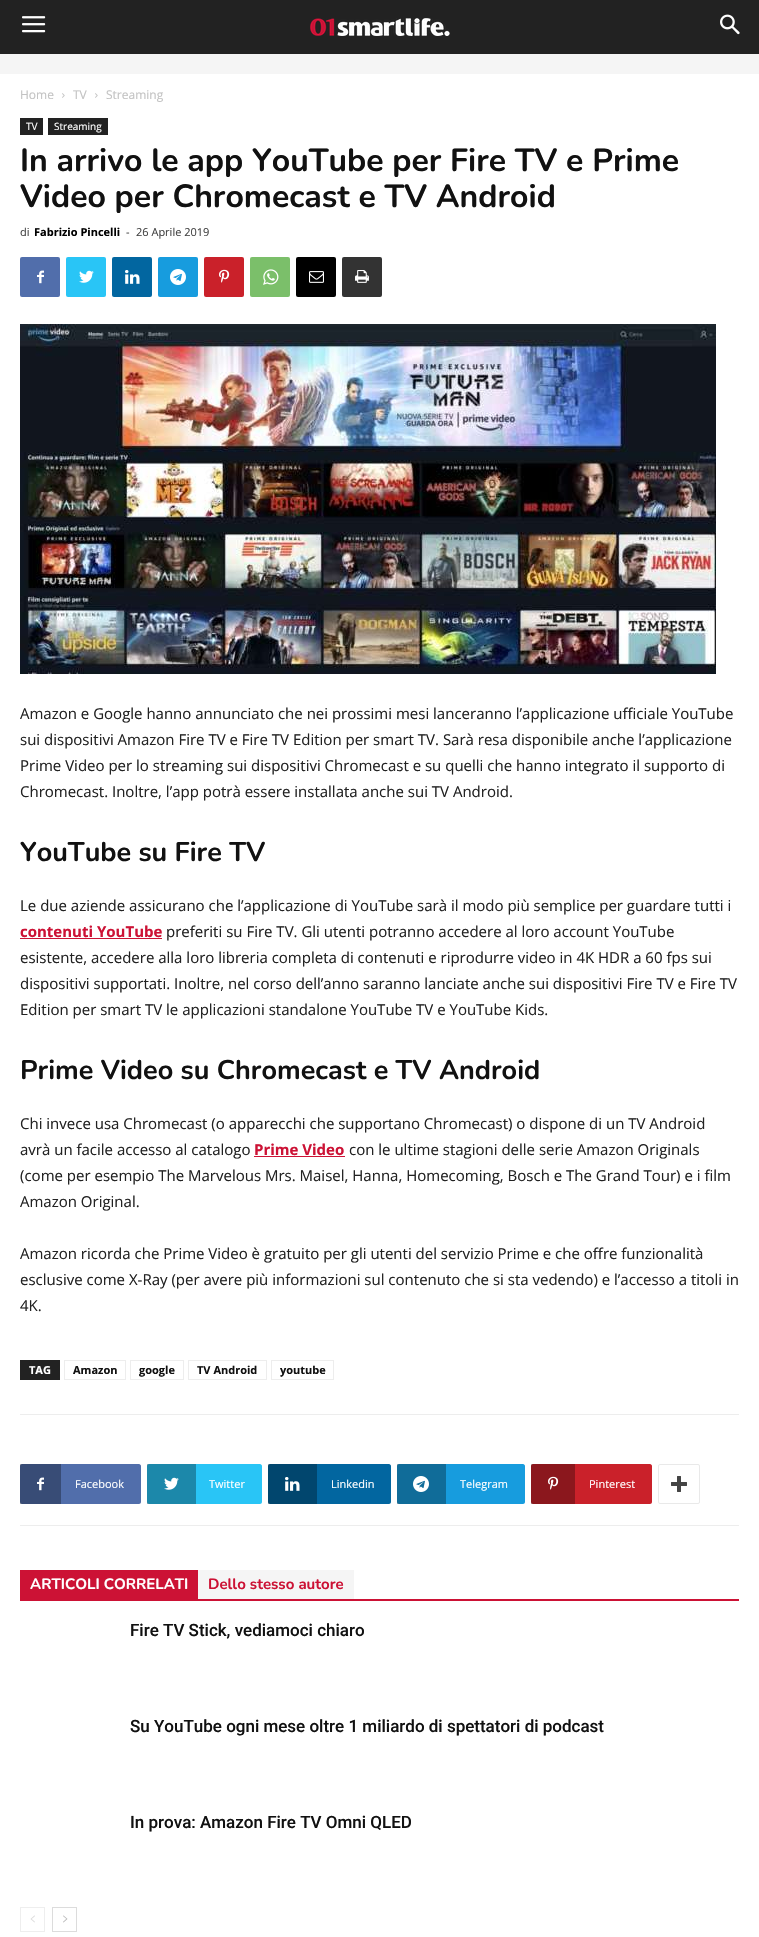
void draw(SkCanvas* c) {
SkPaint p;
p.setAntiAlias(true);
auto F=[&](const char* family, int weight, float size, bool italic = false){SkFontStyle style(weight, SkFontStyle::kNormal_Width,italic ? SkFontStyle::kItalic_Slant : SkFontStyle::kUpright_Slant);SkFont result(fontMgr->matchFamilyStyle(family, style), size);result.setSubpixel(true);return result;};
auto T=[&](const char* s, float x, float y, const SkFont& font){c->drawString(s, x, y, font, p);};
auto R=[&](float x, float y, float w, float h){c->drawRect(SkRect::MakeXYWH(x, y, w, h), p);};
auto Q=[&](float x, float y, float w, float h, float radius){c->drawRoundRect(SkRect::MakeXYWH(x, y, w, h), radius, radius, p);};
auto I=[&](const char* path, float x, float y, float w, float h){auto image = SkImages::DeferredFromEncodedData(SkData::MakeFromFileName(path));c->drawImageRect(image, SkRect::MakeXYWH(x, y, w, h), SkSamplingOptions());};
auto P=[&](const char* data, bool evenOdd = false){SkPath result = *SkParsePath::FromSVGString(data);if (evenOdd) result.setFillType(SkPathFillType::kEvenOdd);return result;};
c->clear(0xffffffff);
p.setColor(0xffb0b0b0);
R(531,1464,2,40);
R(397,1464,2,40);
R(268,1464,2,40);
R(147,1464,2,40);
R(20,1464,2,40);
p.setColor(0xff222222);
R(0,0,759,54);
I("1.png",22,16,24,17);
I("2.png",310,18,140,18);
I("3.png",720,14,20,21);
p.setColor(0xfff5f5f5);
R(0,54,759,20);
auto f1 = F("Open Sans",400,12);
p.setColor(0xffc3c3c3);
T("Home",20,99,f1);
I("4.png",62,93,3,5);
T("TV",73,99,f1);
I("4.png",95,93,3,5);
T("Streaming",106,99,f1);
p.setColor(0xff222222);
R(20,118,23,17);
auto f2 = F("Open Sans",400,10);
p.setColor(0xffffffff);
T("TV",26,130,f2);
p.setColor(0xff222222);
R(48,118,60,17);
p.setColor(0xffffffff);
T("Streaming",54,130,f2);
auto f3 = F("Nunito",200,32);
p.setColor(0xff111111);
T("In arrivo le app YouTube per Fire TV e Prime",20,171,f3);
T("Video per Chromecast e TV Android",20,207,f3);
auto f4 = F("Open Sans",400,11);
p.setColor(0xff444444);
T("di",20,236,f4);
auto f5 = F("Open Sans",700,11);
p.setColor(0xff000000);
T("Fabrizio Pincelli",34,236,f5);
p.setColor(0xff444444);
T("-",126,236,f4);
T("26 Aprile 2019",136,236,f4);
p.setColor(0xff516eab);
Q(20,257,40,40,2);
I("5.png",37,270,7,14);
p.setColor(0xff29c5f6);
Q(66,257,40,40,2);
I("6.png",79,270,15,13);
p.setColor(0xff0266a0);
Q(112,257,40,40,2);
I("7.png",125,270,15,14);
p.setColor(0xff179cde);
Q(158,257,40,40,2);
I("8.png",170,269,16,16);
p.setColor(0xffca212a);
Q(204,257,40,40,2);
I("9.png",219,269,11,14);
p.setColor(0xff7bbf6a);
Q(250,257,40,40,2);
I("10.png",263,269,16,16);
p.setColor(0xff000000);
Q(296,257,40,40,2);
I("11.png",309,271,15,12);
p.setColor(0xff333333);
Q(342,257,40,40,2);
I("12.png",355,270,14,13);
I("13.png",20,324,696,350);
auto f6 = F("Open Sans",400,15);
p.setColor(0xff222222);
T("Amazon e Google hanno annunciato che nei prossimi mesi lanceranno l’applicazione ufficiale YouTube",20,719,f6);
T("sui dispositivi Amazon Fire TV e Fire TV Edition per smart TV. Sarà resa disponibile anche l’applicazione",20,745,f6);
T("Prime Video per lo streaming sui dispositivi Chromecast e su quelli che hanno integrato il supporto di",20,771,f6);
T("Chromecast. Inoltre, l’app potrà essere installata anche sui TV Android.",20,797,f6);
auto f7 = F("Nunito",200,27);
p.setColor(0xff111111);
T("YouTube su Fire TV",20,861,f7);
p.setColor(0xff222222);
T("Le due aziende assicurano che l’applicazione di YouTube sarà il modo più semplice per guardare tutti i",20,911,f6);
auto f8 = F("Open Sans",700,15);
p.setColor(0xffcc1235);
T("contenuti YouTube",20,937,f8);
R(20,938,142,1);
p.setColor(0xff222222);
T("preferiti su Fire TV. Gli utenti potranno accedere al loro account YouTube",166,937,f6);
T("esistente, accedere alla loro libreria completa di contenuti e riprodurre video in 4K HDR a 60 fps sui",20,963,f6);
T("dispositivi supportati. Inoltre, nel corso dell’anno saranno lanciate anche sui dispositivi Fire TV e Fire TV",20,989,f6);
T("Edition per smart TV le applicazioni standalone YouTube TV e YouTube Kids.",20,1015,f6);
p.setColor(0xff111111);
T("Prime Video su Chromecast e TV Android",20,1079,f7);
p.setColor(0xff222222);
T("Chi invece usa Chromecast (o apparecchi che supportano Chromecast) o dispone di un TV Android",20,1129,f6);
T("avrà un facile accesso al catalogo",20,1155,f6);
p.setColor(0xffcc1235);
T("Prime Video",254,1155,f8);
R(254,1156,91,1);
p.setColor(0xff222222);
T("con le ultime stagioni delle serie Amazon Originals",349,1155,f6);
T("(come per esempio The Marvelous Mrs. Maisel, Hanna, Homecoming, Bosch e The Grand Tour) e i film",20,1181,f6);
T("Amazon Original.",20,1207,f6);
T("Amazon ricorda che Prime Video è gratuito per gli utenti del servizio Prime e che offre funzionalità",20,1259,f6);
T("esclusive come X-Ray (per avere più informazioni sul contenuto che si sta vedendo) e l’accesso a titoli in",20,1285,f6);
T("4K.",20,1311,f6);
R(20,1360,40,20);
p.setColor(0xffffffff);
T("TAG",29,1374,f5);
p.setStroke(true);
p.setStrokeWidth(1);
p.setColor(0xffededed);
c->drawRect(SkRect::MakeXYWH(64.5,1360.5,61,19),p);
p.setStroke(false);
p.setColor(0xff111111);
T("Amazon",73,1374,f5);
p.setStroke(true);
p.setColor(0xffededed);
c->drawRect(SkRect::MakeXYWH(130.5,1360.5,53,19),p);
p.setStroke(false);
p.setColor(0xff111111);
T("google",139,1374,f5);
p.setStroke(true);
p.setColor(0xffededed);
c->drawRect(SkRect::MakeXYWH(188.5,1360.5,78,19),p);
p.setStroke(false);
p.setColor(0xff111111);
T("TV Android",197,1374,f5);
p.setStroke(true);
p.setColor(0xffededed);
c->drawRect(SkRect::MakeXYWH(271.5,1360.5,62,19),p);
p.setStroke(false);
p.setColor(0xff111111);
T("youtube",280,1374,f5);
p.setColor(0xffededed);
R(20,1414,719,1);
R(20,1525,719,1);
p.setColor(0xff516eab);
c->drawPath(P("M58 1464h81c1 0 2 1 2 2v36c0 1-1 2-2 2h-81z"),p);
p.setColor(0xff384c76);
c->drawPath(P("M22 1464h39v40h-39c-1 0-2-1-2-2v-36c0-1 1-2 2-2z"),p);
I("14.png",37,1477,7,14);
p.setColor(0xffffffff);
T("Facebook",75,1488,f4);
p.setColor(0xff29c5f6);
c->drawPath(P("M192 1464h68c1 0 2 1 2 2v36c0 1-1 2-2 2h-68z"),p);
p.setColor(0xff1c88aa);
c->drawPath(P("M149 1464h47v40h-47c-1 0-2-1-2-2v-36c0-1 1-2 2-2z"),p);
I("15.png",164,1477,15,13);
p.setColor(0xffffffff);
T("Twitter",209,1488,f4);
p.setColor(0xff0266a0);
c->drawPath(P("M314 1464h75c1 0 2 1 2 2v36c0 1-1 2-2 2h-75z"),p);
p.setColor(0xff01466e);
c->drawPath(P("M270 1464h47v40h-47c-1 0-2-1-2-2v-36c0-1 1-2 2-2z"),p);
I("16.png",285,1477,15,14);
p.setColor(0xffffffff);
T("Linkedin",331,1488,f4);
p.setColor(0xff179cde);
c->drawPath(P("M443 1464h80c1 0 2 1 2 2v36c0 1-1 2-2 2h-80z"),p);
p.setColor(0xff106c99);
c->drawPath(P("M399 1464h47v40h-47c-1 0-2-1-2-2v-36c0-1 1-2 2-2z"),p);
I("17.png",413,1476,16,16);
p.setColor(0xffffffff);
T("Telegram",460,1488,f4);
p.setColor(0xffca212a);
c->drawPath(P("M572 1464h78c1 0 2 1 2 2v36c0 1-1 2-2 2h-78z"),p);
p.setColor(0xff8b171d);
c->drawPath(P("M533 1464h42v40h-42c-1 0-2-1-2-2v-36c0-1 1-2 2-2z"),p);
I("18.png",548,1476,11,14);
p.setColor(0xffffffff);
T("Pinterest",589,1488,f4);
p.setStroke(true);
p.setColor(0xffe9e9e9);
c->drawRoundRect(SkRect::MakeXYWH(658.5,1464.5,41,39),1.5,1.5,p);
I("19.png",671,1476,16,16);
p.setStroke(false);
p.setColor(0xffcc1235);
R(20,1599,719,2);
R(20,1570,178,29);
auto f9 = F("Nunito",200,15);
p.setColor(0xffffffff);
T("ARTICOLI CORRELATI",30,1589,f9);
p.setColor(0xfff5f5f5);
R(198,1570,156,29);
p.setColor(0xffcc1235);
T("Dello stesso autore",208,1589,f9);
auto f10 = F("Roboto",500,17);
p.setColor(0xff111111);
T("Fire TV Stick, vediamoci chiaro",130,1636,f10);
T("Su YouTube ogni mese oltre 1 miliardo di spettatori di podcast",130,1732,f10);
T("In prova: Amazon Fire TV Omni QLED",130,1828,f10);
p.setStroke(true);
p.setColor(0xffeeeeee);
c->drawRect(SkRect::MakeXYWH(20.5,1907.5,24,24),p);
I("20.png",30,1915,5,8);
p.setColor(0xffdcdcdc);
c->drawRect(SkRect::MakeXYWH(52.5,1907.5,24,24),p);
I("21.png",63,1915,5,8);
}
